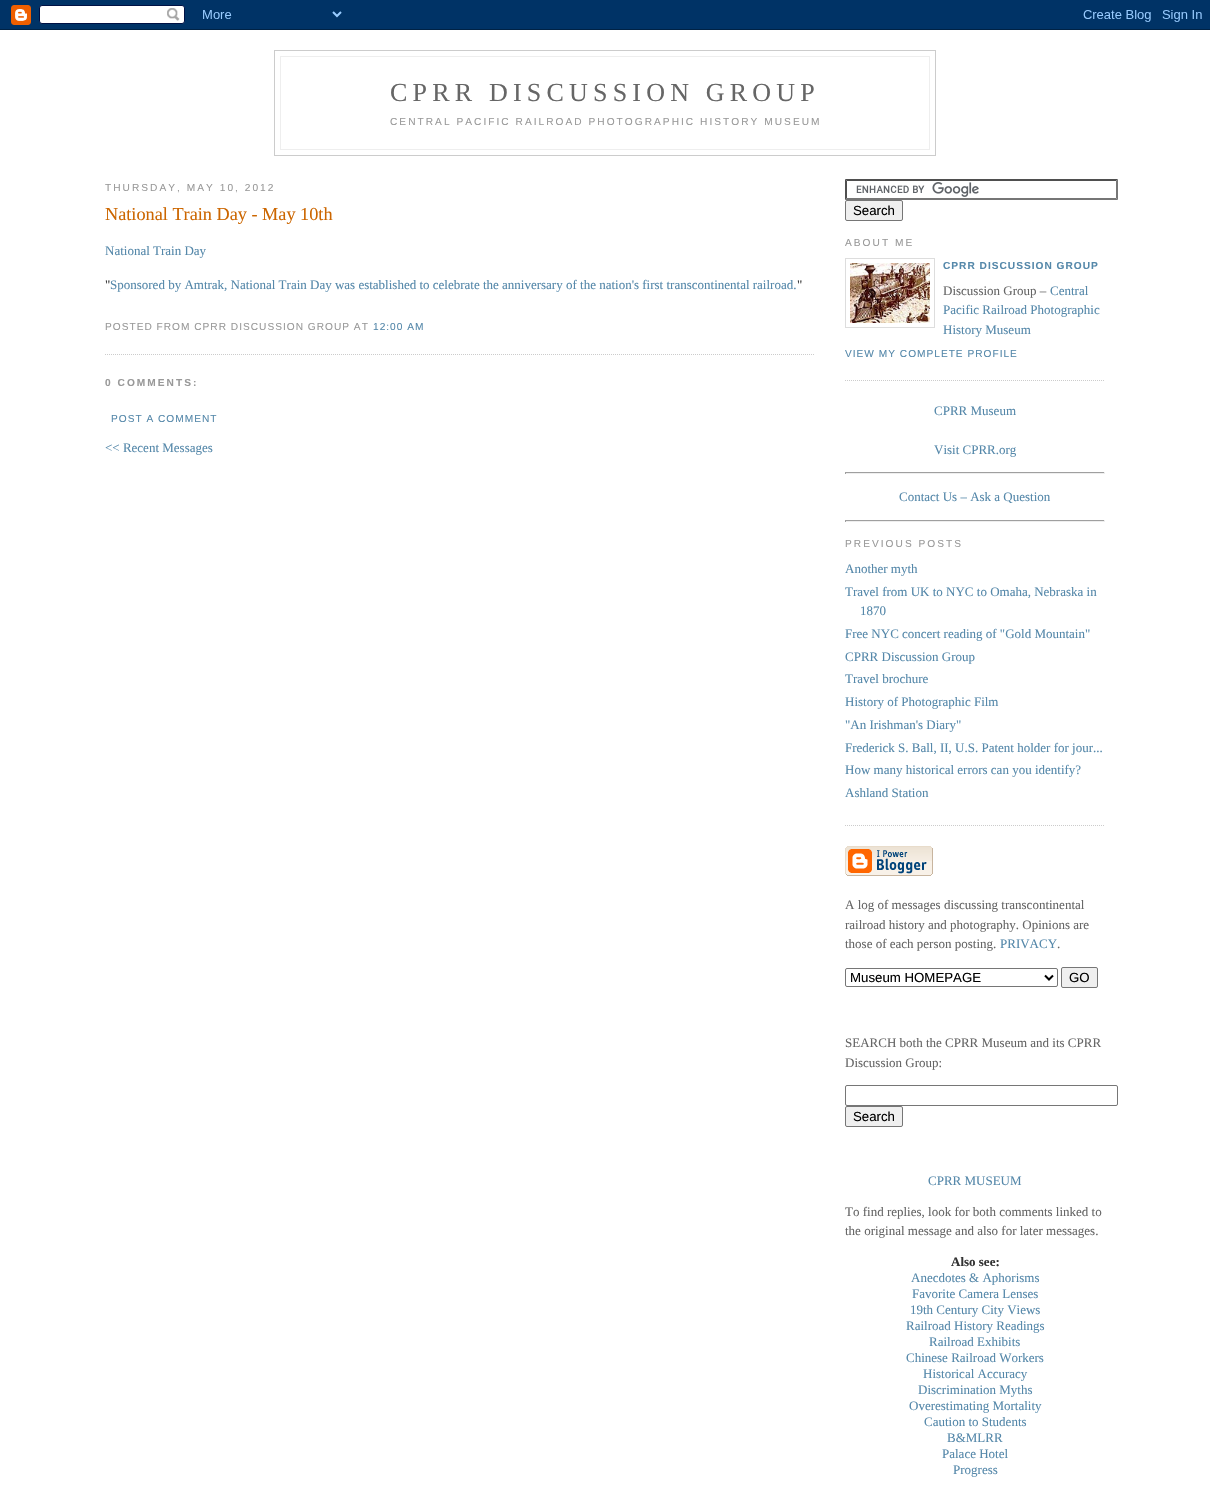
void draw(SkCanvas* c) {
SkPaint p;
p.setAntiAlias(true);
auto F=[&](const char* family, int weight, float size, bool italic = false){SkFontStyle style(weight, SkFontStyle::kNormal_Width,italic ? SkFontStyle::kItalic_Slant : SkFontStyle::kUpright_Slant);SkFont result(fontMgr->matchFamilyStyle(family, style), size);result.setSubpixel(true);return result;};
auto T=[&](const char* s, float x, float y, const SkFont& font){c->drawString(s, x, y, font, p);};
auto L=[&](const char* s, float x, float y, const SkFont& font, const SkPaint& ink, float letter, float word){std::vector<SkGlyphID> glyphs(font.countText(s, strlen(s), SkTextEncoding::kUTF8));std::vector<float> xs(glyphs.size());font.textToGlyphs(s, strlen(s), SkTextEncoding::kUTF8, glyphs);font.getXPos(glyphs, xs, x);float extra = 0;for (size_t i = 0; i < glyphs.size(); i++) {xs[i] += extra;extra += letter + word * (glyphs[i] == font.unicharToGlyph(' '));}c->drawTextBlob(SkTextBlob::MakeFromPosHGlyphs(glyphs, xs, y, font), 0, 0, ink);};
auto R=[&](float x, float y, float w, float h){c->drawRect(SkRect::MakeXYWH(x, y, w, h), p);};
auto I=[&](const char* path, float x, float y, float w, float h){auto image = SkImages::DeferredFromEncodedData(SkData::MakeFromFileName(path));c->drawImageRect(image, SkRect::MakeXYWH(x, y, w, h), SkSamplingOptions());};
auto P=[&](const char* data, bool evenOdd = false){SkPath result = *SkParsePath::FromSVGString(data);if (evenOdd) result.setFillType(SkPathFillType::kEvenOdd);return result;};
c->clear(0xffffffff);
I("1.png",0,0,1210,30);
p.setStroke(true);
p.setStrokeWidth(1);
p.setColor(0xffcccccc);
c->drawRect(SkRect::MakeXYWH(274.5,50.5,661,105),p);
p.setStroke(false);
p.setColor(0xffeeeeee);
R(280,56,650,1);
R(929,56,1,94);
R(280,56,1,59);
auto f1 = F("Liberation Serif",400,26);
p.setColor(0xff666666);
L("CPRR DISCUSSION GROUP",390,101,f1,p,5.2,0);
p.setColor(0xffeeeeee);
R(280,149,650,1);
R(280,115,1,35);
auto f2 = F("Liberation Sans",400,10.15);
p.setColor(0xff999999);
L("CENTRAL PACIFIC RAILROAD PHOTOGRAPHIC HISTORY MUSEUM",390,125,f2,p,2.03,0);
L("THURSDAY, MAY 10, 2012",105,191,f2,p,2.03,0);
p.setStroke(true);
p.setColor(0xffcccccc);
p.setPathEffect(SkDashPathEffect::Make({{1,1}}, 0));
c->drawPath(P("M105 354.5h710"),p);
p.setPathEffect(nullptr);
auto f3 = F("Liberation Serif",400,18.25);
p.setStroke(false);
p.setColor(0xffcc6600);
T("National Train Day - May 10th",105,220,f3);
auto f4 = F("Liberation Serif",400,13);
p.setColor(0xff5588aa);
T("National Train Day",105,255,f4);
p.setColor(0xff333333);
T("\"",105,289,f4);
p.setColor(0xff5588aa);
T("Sponsored by Amtrak, National Train Day was established to celebrate the anniversary of the nation's first transcontinental railroad.",110,289,f4);
p.setColor(0xff333333);
T("\"",797,289,f4);
p.setColor(0xff999999);
L("POSTED FROM CPRR DISCUSSION GROUP AT",105,330,f2,p,1,0);
p.setColor(0xff5588aa);
L("12:00 AM",373,330,f2,p,1,0);
auto f5 = F("Liberation Sans",700,10.15);
p.setColor(0xff999999);
L("0 COMMENTS:",105,386,f5,p,2.03,0);
p.setColor(0xff5588aa);
L("POST A COMMENT",111,422,f2,p,1,0);
T("<< Recent Messages",105,452,f4);
I("2.png",856,182,123,15);
p.setColor(0xff4f4f4f);
c->drawPath(P("M845 179h273l-2 2h-269z"),p);
p.setColor(0xff767676);
c->drawPath(P("M1118 179v21l-2-2v-17z"),p);
c->drawPath(P("M1118 200h-273l2-2h269z"),p);
p.setColor(0xff4f4f4f);
c->drawPath(P("M845 200v-21l2 2v17z"),p);
p.setColor(0xffefefef);
c->drawRoundRect(SkRect::MakeXYWH(845.5,200.5,57,20),1.5,1.5,p);
p.setStroke(true);
p.setColor(0xff767676);
c->drawRoundRect(SkRect::MakeXYWH(845.5,200.5,57,20),1.5,1.5,p);
auto f6 = F("Liberation Sans",400,13.25);
p.setStroke(false);
p.setColor(0xff000000);
T("Search",853,215,f6);
p.setStroke(true);
p.setColor(0xffcccccc);
p.setPathEffect(SkDashPathEffect::Make({{1,1}}, 0));
c->drawPath(P("M845 380.5h260"),p);
p.setPathEffect(nullptr);
p.setStroke(false);
p.setColor(0xff999999);
L("ABOUT ME",845,246,f2,p,2.03,0);
p.setStroke(true);
p.setColor(0xffdddddd);
c->drawRect(SkRect::MakeXYWH(845.5,258.5,89,69),p);
I("3.png",850,263,80,60);
p.setStroke(false);
p.setColor(0xff5588aa);
L("CPRR DISCUSSION GROUP",943,269,f5,p,1,0);
p.setColor(0xff666666);
T("Discussion Group –",943,295,f4);
p.setColor(0xff5588aa);
T("Central",1050,295,f4);
T("Pacific Railroad Photographic",943,314,f4);
T("History Museum",943,334,f4);
L("VIEW MY COMPLETE PROFILE",845,357,f2,p,1,0);
T("CPRR Museum",934,415,f4);
T("Visit CPRR.org",934,454,f4);
p.setColor(0xff9f9f9f);
R(845,472,260,1);
p.setColor(0xffeeeeee);
R(1104,472,1,2);
R(845,473,260,1);
p.setColor(0xff9f9f9f);
R(845,472,1,2);
p.setColor(0xff5588aa);
T("Contact Us – Ask a Question",899,501,f4);
p.setColor(0xff9f9f9f);
R(845,520,260,1);
p.setColor(0xffeeeeee);
R(1104,520,1,2);
R(845,521,260,1);
p.setColor(0xff9f9f9f);
R(845,520,1,2);
p.setColor(0xff999999);
L("PREVIOUS POSTS",845,547,f2,p,2.03,0);
p.setStroke(true);
p.setColor(0xffcccccc);
p.setPathEffect(SkDashPathEffect::Make({{1,1}}, 0));
c->drawPath(P("M845 825.5h260"),p);
p.setPathEffect(nullptr);
p.setStroke(false);
p.setColor(0xff5588aa);
T("Another myth",845,573,f4);
T("Travel from UK to NYC to Omaha, Nebraska in",845,596,f4);
T("1870",860,615,f4);
T("Free NYC concert reading of \"Gold Mountain\"",845,638,f4);
T("CPRR Discussion Group",845,661,f4);
T("Travel brochure",845,683,f4);
T("History of Photographic Film",845,706,f4);
T("\"An Irishman's Diary\"",845,729,f4);
T("Frederick S. Ball, II, U.S. Patent holder for jour...",845,752,f4);
T("How many historical errors can you identify?",845,774,f4);
T("Ashland Station",845,797,f4);
I("4.png",845,846,88,30);
p.setColor(0xff666666);
T("A log of messages discussing transcontinental",845,909,f4);
T("railroad history and photography. Opinions are",845,929,f4);
T("those of each person posting.",845,948,f4);
p.setColor(0xff5588aa);
T("PRIVACY",1000,948,f4);
p.setColor(0xff666666);
T(".",1057,948,f4);
p.setStroke(true);
p.setColor(0xff767676);
c->drawRoundRect(SkRect::MakeXYWH(845.5,968.5,212,18),1.5,1.5,p);
p.setStrokeWidth(2);
p.setColor(0xff000000);
c->drawPath(P("M1045 975.5l4 4l4-4"),p);
p.setStroke(false);
T("Museum HOMEPAGE",850,982,f6);
p.setColor(0xffefefef);
c->drawRoundRect(SkRect::MakeXYWH(1061.5,967.5,36,20),1.5,1.5,p);
p.setStroke(true);
p.setStrokeWidth(1);
p.setColor(0xff767676);
c->drawRoundRect(SkRect::MakeXYWH(1061.5,967.5,36,20),1.5,1.5,p);
p.setStroke(false);
p.setColor(0xff000000);
T("GO",1069,982,f6);
p.setColor(0xff666666);
T("SEARCH both the CPRR Museum and its CPRR",845,1047,f4);
T("Discussion Group:",845,1067,f4);
p.setStroke(true);
p.setColor(0xff767676);
c->drawRoundRect(SkRect::MakeXYWH(845.5,1085.5,272,20),1.5,1.5,p);
p.setStroke(false);
p.setColor(0xffefefef);
c->drawRoundRect(SkRect::MakeXYWH(845.5,1106.5,57,20),1.5,1.5,p);
p.setStroke(true);
p.setColor(0xff767676);
c->drawRoundRect(SkRect::MakeXYWH(845.5,1106.5,57,20),1.5,1.5,p);
p.setStroke(false);
p.setColor(0xff000000);
T("Search",853,1121,f6);
p.setColor(0xff5588aa);
T("CPRR MUSEUM",928,1185,f4);
p.setColor(0xff666666);
T("To find replies, look for both comments linked to",845,1216,f4);
T("the original message and also for later messages.",845,1235,f4);
auto f7 = F("Liberation Serif",700,13);
p.setColor(0xff333333);
T("Also see:",951,1266,f7);
p.setColor(0xff5588aa);
T("Anecdotes & Aphorisms",911,1282,f4);
T("Favorite Camera Lenses",912,1298,f4);
T("19th Century City Views",910,1314,f4);
T("Railroad History Readings",906,1330,f4);
T("Railroad Exhibits",929,1346,f4);
T("Chinese Railroad Workers",906,1362,f4);
T("Historical Accuracy",923,1378,f4);
T("Discrimination Myths",918,1394,f4);
T("Overestimating Mortality",909,1410,f4);
T("Caution to Students",924,1426,f4);
T("B&MLRR",947,1442,f4);
T("Palace Hotel",942,1458,f4);
T("Progress",953,1474,f4);
}
